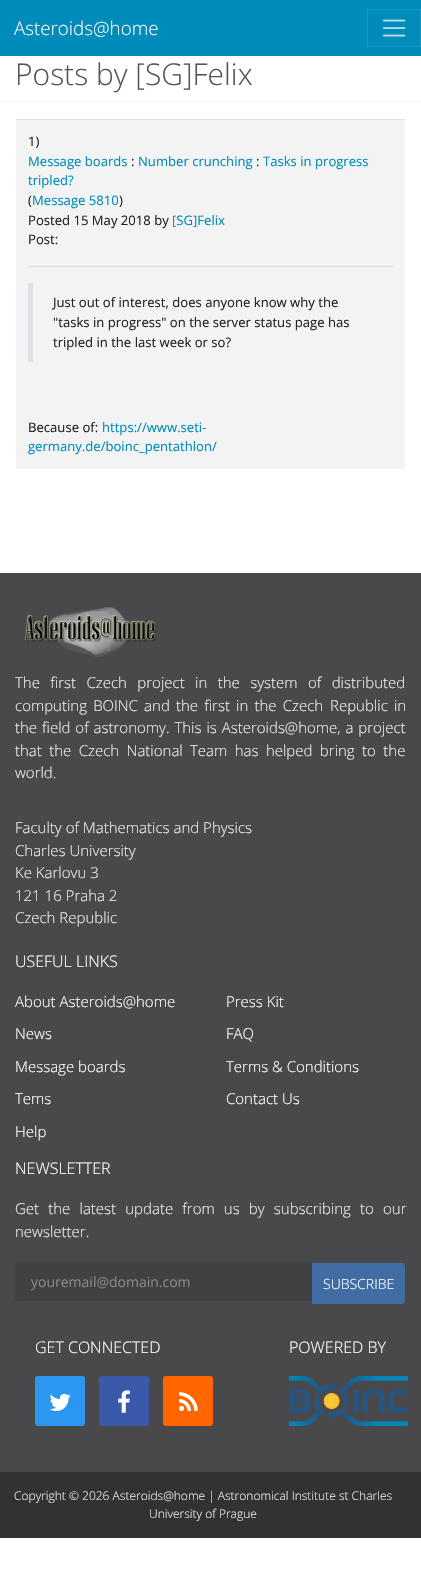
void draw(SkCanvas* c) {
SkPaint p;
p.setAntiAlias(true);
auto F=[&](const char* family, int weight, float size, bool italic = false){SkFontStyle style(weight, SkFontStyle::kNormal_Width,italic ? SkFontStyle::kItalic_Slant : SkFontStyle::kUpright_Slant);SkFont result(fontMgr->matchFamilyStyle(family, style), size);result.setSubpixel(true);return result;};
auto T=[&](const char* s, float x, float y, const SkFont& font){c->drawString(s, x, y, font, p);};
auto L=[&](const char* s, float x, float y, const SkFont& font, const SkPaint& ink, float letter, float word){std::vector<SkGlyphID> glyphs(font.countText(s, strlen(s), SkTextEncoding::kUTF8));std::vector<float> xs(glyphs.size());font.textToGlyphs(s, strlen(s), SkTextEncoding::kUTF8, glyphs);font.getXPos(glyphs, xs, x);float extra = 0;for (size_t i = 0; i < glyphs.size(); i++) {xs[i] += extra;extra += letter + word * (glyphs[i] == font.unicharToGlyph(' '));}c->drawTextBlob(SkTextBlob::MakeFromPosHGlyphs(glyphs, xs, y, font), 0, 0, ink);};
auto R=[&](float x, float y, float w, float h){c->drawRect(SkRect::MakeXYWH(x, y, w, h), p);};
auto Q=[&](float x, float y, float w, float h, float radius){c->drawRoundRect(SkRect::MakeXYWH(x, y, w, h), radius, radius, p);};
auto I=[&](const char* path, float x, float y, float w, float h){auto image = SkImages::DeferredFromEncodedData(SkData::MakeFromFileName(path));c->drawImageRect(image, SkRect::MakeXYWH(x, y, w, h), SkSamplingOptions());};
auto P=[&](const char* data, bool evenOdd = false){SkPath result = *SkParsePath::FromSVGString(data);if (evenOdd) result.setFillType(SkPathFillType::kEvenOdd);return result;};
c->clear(0xffffffff);
p.setColor(0xff008cba);
R(0,0,421,56);
auto f1 = F("Open Sans",300,18.75);
p.setColor(0xfff2f2f2);
T("Asteroids@home",14,35,f1);
p.setStroke(true);
p.setStrokeWidth(1);
p.setColor(0xff1a98c1);
c->drawRect(SkRect::MakeXYWH(367.5,9.5,53,37),p);
I("1.png",382,19,24,18);
auto f2 = F("Open Sans",300,30);
p.setStroke(false);
p.setColor(0xff555555);
T("Posts by [SG]Felix",15,85,f2);
p.setColor(0xfff8f9fa);
R(0,100,421,3);
p.setColor(0xfff3f3f3);
R(16,120,389,349);
p.setColor(0xffdee2e6);
R(16,119,389,1);
auto f3 = F("Open Sans",400,13.1);
p.setColor(0xff222222);
T("1)",28,146,f3);
p.setColor(0xff008cba);
T("Message boards",28,166,f3);
p.setColor(0xff222222);
T(":",131,166,f3);
p.setColor(0xff008cba);
T("Number crunching",138,166,f3);
p.setColor(0xff222222);
T(":",256,166,f3);
p.setColor(0xff008cba);
T("Tasks in progress",263,166,f3);
T("tripled?",28,185,f3);
p.setColor(0xff222222);
T("(",28,205,f3);
p.setColor(0xff008cba);
T("Message 5810",32,205,f3);
p.setColor(0xff222222);
T(")",119,205,f3);
T("Posted 15 May 2018 by",28,225,f3);
p.setColor(0xff008cba);
T("[SG]Felix",172,225,f3);
p.setColor(0xff222222);
T("Post:",28,244,f3);
p.setColor(0xffdbdbdb);
R(28,266,365,1);
p.setColor(0xffdee2e6);
R(28,283,5,79);
p.setColor(0xff222222);
T("Just out of interest, does anyone know why the",53,307,f3);
T("\"tasks in progress\" on the server status page has",53,327,f3);
T("tripled in the last week or so?",53,347,f3);
T("Because of:",28,432,f3);
p.setColor(0xff008cba);
T("https://www.seti-",102,432,f3);
T("germany.de/boinc_pentathlon/",28,451,f3);
p.setColor(0xff49494b);
R(0,573,421,899);
I("2.png",24,607,133,50);
auto f4 = F("Open Sans",300,15);
p.setColor(0xffeaeaea);
L("The first Czech project in the system of distributed",15,688,f4,p,0,6.5);
L("computing BOINC and the first in the Czech",15,711,f4,p,0,2.25);
L("Republic in",330,711,f4,p,0,2.25);
L("the field of astronomy. This is Asteroids@home, a project",15,733,f4,p,0,1);
L("that the Czech National",15,756,f4,p,0,3.5);
L("Team has helped bring to the",190,756,f4,p,0,3.5);
T("world.",15,778,f4);
T("Faculty of Mathematics and Physics",15,833,f4);
T("Charles University",15,856,f4);
T("Ke Karlovu 3",15,878,f4);
T("121 16 Praha 2",15,901,f4);
T("Czech Republic",15,923,f4);
auto f5 = F("Open Sans",300,16);
p.setColor(0xffffffff);
T("USEFUL LINKS",15,967,f5);
T("About Asteroids@home",15,1007,f4);
T("News",15,1039,f4);
T("Message boards",15,1072,f4);
T("Tems",15,1104,f4);
T("Help",15,1137,f4);
T("Press Kit",226,1007,f4);
T("FAQ",226,1039,f4);
T("Terms & Conditions",226,1072,f4);
T("Contact Us",226,1104,f4);
T("NEWSLETTER",15,1174,f5);
p.setColor(0xffeaeaea);
L("Get the latest update from us by subscribing to our",15,1214,f4,p,0,5.25);
T("newsletter.",15,1237,f4);
p.setColor(0xff414143);
c->drawPath(P("M18 1262h294v39h-294c-1.5 0-3-1.5-3-3v-33c0-1.5 1.5-3 3-3z"),p);
auto f6 = F("Open Sans",400,14);
p.setColor(0xff888888);
T("youremail@domain.com",31,1287,f6);
p.setColor(0xff406da4);
c->drawPath(P("M312 1263h90c1.5 0 3 1.5 3 3v35c0 1.5-1.5 3-3 3h-90z"),p);
auto f7 = F("Open Sans",300,14);
p.setColor(0xffffffff);
T("SUBSCRIBE",323,1289,f7);
T("GET CONNECTED",35,1353,f5);
p.setColor(0xff2b97f0);
Q(35,1376,50,50,3);
I("3.png",49,1393,22,18);
p.setColor(0xff3b59ab);
Q(99,1376,50,50,3);
I("4.png",118,1390,12,23);
p.setColor(0xffff6600);
Q(163,1376,50,50,3);
I("5.png",179,1392,19,19);
p.setColor(0xffffffff);
T("POWERED BY",289,1353,f5);
I("6.png",289,1376,119,50);
p.setColor(0xff323232);
R(0,1472,421,66);
auto f8 = F("Open Sans",300,12);
p.setColor(0xffeaeaea);
T("Copyright © 2026 Asteroids@home | Astronomical Institute st Charles",14,1500,f8);
T("University of Prague",149,1518,f8);
}
